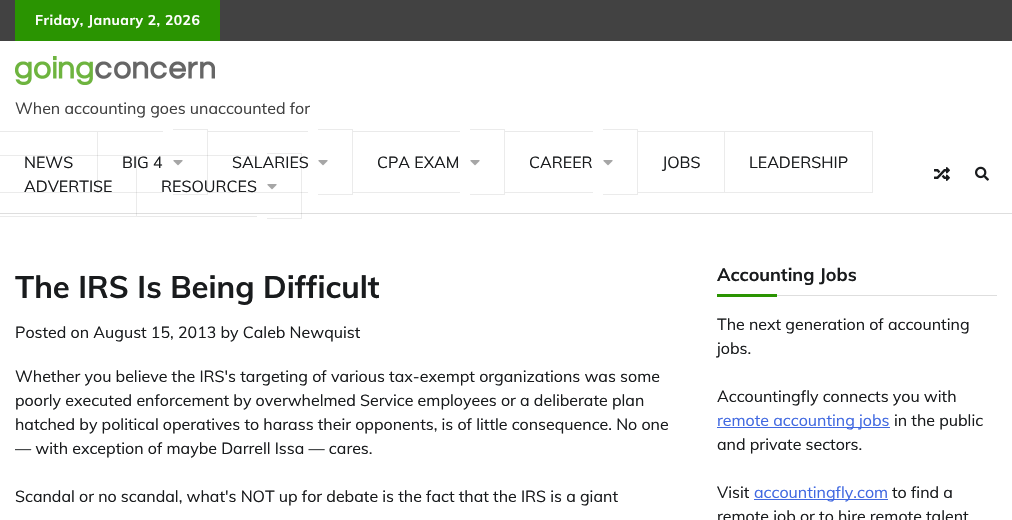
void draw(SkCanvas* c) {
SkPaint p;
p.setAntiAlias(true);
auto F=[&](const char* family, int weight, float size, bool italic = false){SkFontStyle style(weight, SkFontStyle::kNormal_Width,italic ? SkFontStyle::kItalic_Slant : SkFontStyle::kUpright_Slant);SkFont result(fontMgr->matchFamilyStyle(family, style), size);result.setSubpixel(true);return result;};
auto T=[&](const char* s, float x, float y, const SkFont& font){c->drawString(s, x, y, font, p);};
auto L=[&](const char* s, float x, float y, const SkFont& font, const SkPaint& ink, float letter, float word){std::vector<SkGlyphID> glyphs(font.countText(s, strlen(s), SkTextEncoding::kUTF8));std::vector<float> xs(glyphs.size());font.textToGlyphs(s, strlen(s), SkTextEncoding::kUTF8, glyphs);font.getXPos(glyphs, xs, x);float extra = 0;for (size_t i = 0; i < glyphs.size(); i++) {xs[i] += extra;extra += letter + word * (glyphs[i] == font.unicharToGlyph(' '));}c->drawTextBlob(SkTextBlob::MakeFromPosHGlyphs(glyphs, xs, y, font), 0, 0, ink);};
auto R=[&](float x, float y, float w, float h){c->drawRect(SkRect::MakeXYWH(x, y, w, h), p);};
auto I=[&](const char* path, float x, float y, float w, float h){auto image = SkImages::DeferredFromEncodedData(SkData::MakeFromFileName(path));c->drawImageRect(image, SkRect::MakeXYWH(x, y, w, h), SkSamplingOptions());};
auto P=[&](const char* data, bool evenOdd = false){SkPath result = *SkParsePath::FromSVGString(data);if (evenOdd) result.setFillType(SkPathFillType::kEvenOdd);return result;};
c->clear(0xffffffff);
p.setColor(0xff424242);
R(0,0,1012,41);
p.setColor(0xff2a9401);
R(15,0,205,41);
auto f1 = F("Muli",700,13.9);
p.setColor(0xffffffff);
L("Friday, January 2, 2026",35,25,f1,p,.5,0);
I("1.png",15,56,200,29);
auto f2 = F("Muli",400,16);
p.setColor(0xff404040);
T("When accounting goes unaccounted for",15,114,f2);
p.setColor(0xffdedede);
R(0,213,1012,1);
p.setColor(0xff191b1d);
T("NEWS",24,168,f2);
p.setColor(0xffeaeaea);
c->drawPath(P("M0 131h98l-1 1h-97z"),p);
p.setColor(0x14000000);
c->drawPath(P("M98 131v62l-1-1v-60z"),p);
c->drawPath(P("M98 193h-98v-1h97z"),p);
p.setColor(0xffeaeaea);
R(98,131,65,1);
p.setColor(0xffebebeb);
R(98,192,65,1);
c->drawPath(P("M173 129h35l-1 1h-34z"),p);
p.setColor(0x14000000);
c->drawPath(P("M208 129v66l-1-1v-64z"),p);
c->drawPath(P("M208 195h-35v-1h34z"),p);
p.setColor(0xff191b1d);
T("BIG 4",122,168,f2);
I("2.png",173,160,10,6);
p.setColor(0xffeaeaea);
R(208,131,100,1);
p.setColor(0xffebebeb);
R(208,192,100,1);
c->drawPath(P("M318 129h35l-1 1h-34z"),p);
p.setColor(0x14000000);
c->drawPath(P("M353 129v66l-1-1v-64z"),p);
c->drawPath(P("M353 195h-35v-1h34z"),p);
p.setColor(0xff191b1d);
T("SALARIES",232,168,f2);
I("2.png",318,160,10,6);
p.setColor(0xffeaeaea);
R(353,131,107,1);
p.setColor(0xffebebeb);
R(353,192,107,1);
c->drawPath(P("M470 129h35l-1 1h-34z"),p);
p.setColor(0x14000000);
c->drawPath(P("M505 129v66l-1-1v-64z"),p);
c->drawPath(P("M505 195h-35v-1h34z"),p);
p.setColor(0xff191b1d);
T("CPA EXAM",377,168,f2);
I("2.png",470,160,10,6);
p.setColor(0xffeaeaea);
R(505,131,88,1);
p.setColor(0xffebebeb);
R(505,192,88,1);
c->drawPath(P("M603 129h35l-1 1h-34z"),p);
p.setColor(0x14000000);
c->drawPath(P("M638 129v66l-1-1v-64z"),p);
c->drawPath(P("M638 195h-35v-1h34z"),p);
p.setColor(0xff191b1d);
T("CAREER",529,168,f2);
I("2.png",603,160,10,6);
T("JOBS",662,168,f2);
p.setColor(0xffeaeaea);
c->drawPath(P("M638 131h87l-1 1h-86z"),p);
p.setColor(0x14000000);
c->drawPath(P("M725 131v62l-1-1v-60z"),p);
c->drawPath(P("M725 193h-87v-1h86z"),p);
p.setColor(0xff191b1d);
T("LEADERSHIP",749,168,f2);
p.setColor(0xffeaeaea);
c->drawPath(P("M725 131h148l-1 1h-147z"),p);
p.setColor(0x14000000);
c->drawPath(P("M873 131v62l-1-1v-60z"),p);
c->drawPath(P("M873 193h-148v-1h147z"),p);
p.setColor(0xff191b1d);
T("ADVERTISE",24,192,f2);
p.setColor(0x14000000);
c->drawPath(P("M0 155h137l-1 1h-136z"),p);
c->drawPath(P("M137 155v62l-1-1v-60z"),p);
c->drawPath(P("M137 217h-137v-1h136z"),p);
R(137,155,120,1);
p.setColor(0xffe9e9e9);
R(137,216,120,1);
p.setColor(0xffebebeb);
c->drawPath(P("M267 153h35l-1 1h-34z"),p);
p.setColor(0x14000000);
c->drawPath(P("M302 153v66l-1-1v-64z"),p);
c->drawPath(P("M302 219h-35v-1h34z"),p);
p.setColor(0xff191b1d);
T("RESOURCES",161,192,f2);
I("2.png",267,184,10,6);
I("3.png",934,167,16,14);
I("4.png",975,166,14,15);
auto f3 = F("Muli",700,31);
T("The IRS Is Being Difficult",15,298,f3);
T("Posted on August 15, 2013 by Caleb Newquist",15,338,f2);
T("Whether you believe the IRS's targeting of various tax-exempt organizations was some",15,382,f2);
T("poorly executed enforcement by overwhelmed Service employees or a deliberate plan",15,406,f2);
T("hatched by political operatives to harass their opponents, is of little consequence. No one",15,430,f2);
T("— with exception of maybe Darrell Issa — cares.",15,454,f2);
T("Scandal or no scandal, what's NOT up for debate is the fact that the IRS is a giant",15,502,f2);
p.setColor(0xffdedede);
R(777,295,220,1);
auto f4 = F("Muli",700,18);
p.setColor(0xff191b1d);
T("Accounting Jobs",717,281,f4);
p.setColor(0xff2a9401);
R(717,294,60,3);
p.setColor(0xff191b1d);
T("The next generation of accounting",717,330,f2);
T("jobs.",717,354,f2);
T("Accountingfly connects you with",717,402,f2);
p.setColor(0xff4169e1);
R(717,427,173,1);
T("remote accounting jobs",717,426,f2);
p.setColor(0xff191b1d);
T("in the public",894,426,f2);
T("and private sectors.",717,450,f2);
T("Visit",717,498,f2);
p.setColor(0xff4169e1);
R(754,499,134,1);
T("accountingfly.com",754,498,f2);
p.setColor(0xff191b1d);
T("to find a",892,498,f2);
T("remote job or to hire remote talent",717,522,f2);
}
